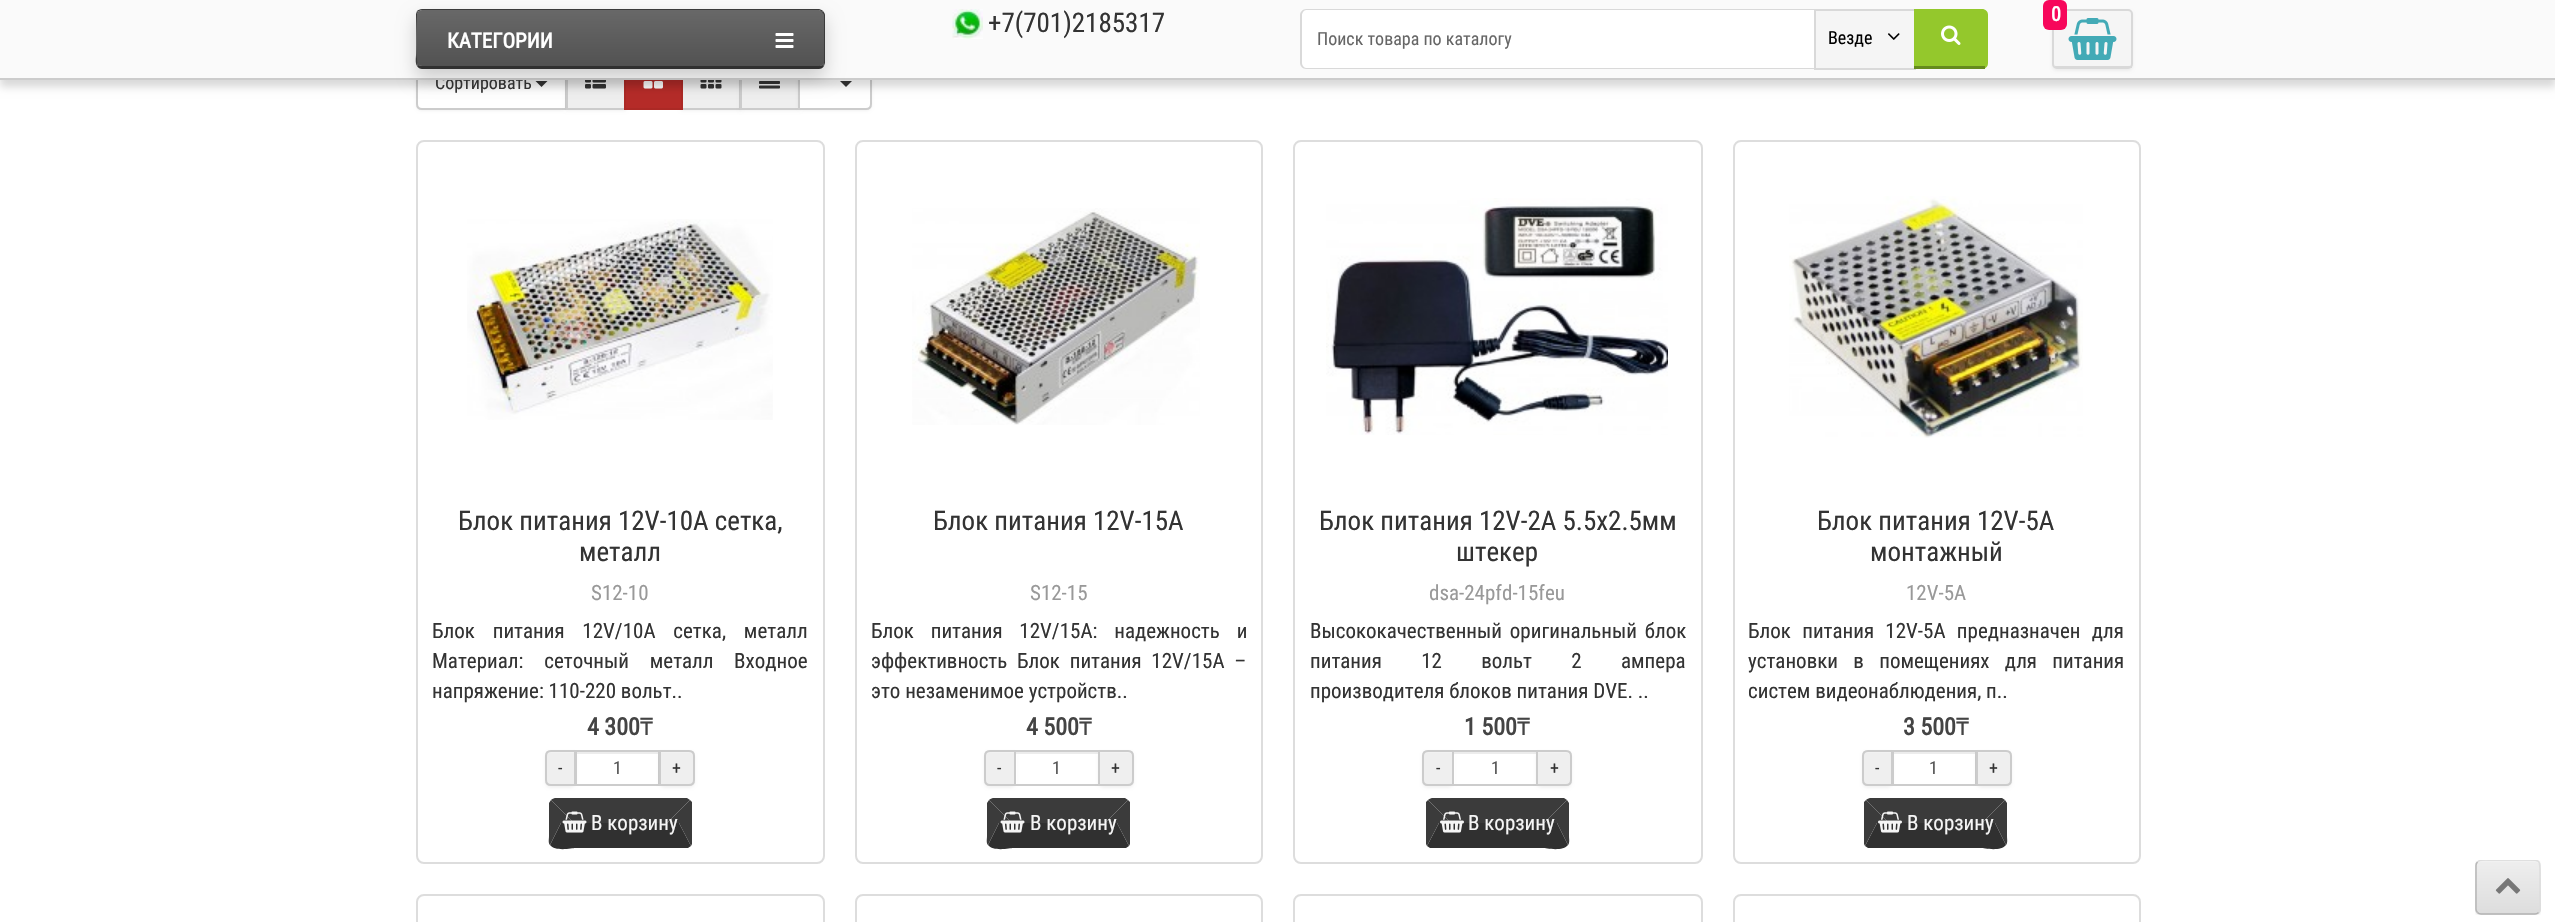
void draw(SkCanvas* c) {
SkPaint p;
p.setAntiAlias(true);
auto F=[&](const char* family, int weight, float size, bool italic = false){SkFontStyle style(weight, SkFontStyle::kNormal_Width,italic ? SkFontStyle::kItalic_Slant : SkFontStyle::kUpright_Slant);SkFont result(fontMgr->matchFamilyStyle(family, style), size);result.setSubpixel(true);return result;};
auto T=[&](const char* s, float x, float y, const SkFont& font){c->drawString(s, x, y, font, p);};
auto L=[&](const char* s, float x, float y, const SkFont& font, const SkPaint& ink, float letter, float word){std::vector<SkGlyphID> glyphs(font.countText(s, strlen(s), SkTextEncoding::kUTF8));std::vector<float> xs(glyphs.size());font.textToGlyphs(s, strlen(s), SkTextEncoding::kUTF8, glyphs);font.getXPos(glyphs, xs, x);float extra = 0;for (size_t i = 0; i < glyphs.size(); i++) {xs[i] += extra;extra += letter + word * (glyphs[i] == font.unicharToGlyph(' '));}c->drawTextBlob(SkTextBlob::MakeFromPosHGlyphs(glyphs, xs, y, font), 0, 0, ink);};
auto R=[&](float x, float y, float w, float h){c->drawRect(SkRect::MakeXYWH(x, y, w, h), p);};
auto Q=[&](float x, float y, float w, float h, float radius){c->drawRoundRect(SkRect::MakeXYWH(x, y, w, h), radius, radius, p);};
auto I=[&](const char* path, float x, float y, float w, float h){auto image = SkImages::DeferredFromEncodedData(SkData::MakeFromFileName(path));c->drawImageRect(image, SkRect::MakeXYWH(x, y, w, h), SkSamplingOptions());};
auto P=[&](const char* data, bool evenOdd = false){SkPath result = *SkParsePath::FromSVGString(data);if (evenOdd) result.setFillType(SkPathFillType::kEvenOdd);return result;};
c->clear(0xffffffff);
p.setColor(0x0d000000);
p.setMaskFilter(SkMaskFilter::MakeBlur(kNormal_SkBlurStyle, 1.5));
c->drawRoundRect(SkRect::MakeXYWH(416,60,151,51),6,6,p);
p.setMaskFilter(nullptr);
p.setColor(0xffffffff);
c->drawPath(P("M422 60h144v49h-144c-3 0-5-2-5-5v-39c0-3 2-5 5-5z"),p);
p.setStroke(true);
p.setStrokeWidth(2);
p.setColor(0xffcccccc);
c->drawPath(P("M422 60h144v49h-144c-3 0-5-2-5-5v-39c0-3 2-5 5-5z"),p);
p.setStroke(false);
p.setColor(0xff333333);
c->drawPath(P("M535.5 81h12l-6 6z"),p);
p.setColor(0x0d000000);
p.setMaskFilter(SkMaskFilter::MakeBlur(kNormal_SkBlurStyle, 1.5));
c->drawRect(SkRect::MakeXYWH(566,60,60,51),p);
p.setMaskFilter(nullptr);
p.setColor(0xffefefef);
R(568,80,56,28);
p.setStroke(true);
p.setColor(0xffcccccc);
c->drawRect(SkRect::MakeXYWH(567,60,58,49),p);
I("6.png",585,80,21,9);
p.setStroke(false);
p.setColor(0x0d000000);
p.setMaskFilter(SkMaskFilter::MakeBlur(kNormal_SkBlurStyle, 1.5));
c->drawRect(SkRect::MakeXYWH(681,60,60,51),p);
p.setMaskFilter(nullptr);
p.setColor(0xffb52b28);
R(626,80,55,28);
p.setColor(0xffefefef);
R(683,80,56,28);
p.setStroke(true);
p.setColor(0xffcccccc);
c->drawRect(SkRect::MakeXYWH(682,60,58,49),p);
p.setColor(0xffac2925);
c->drawRect(SkRect::MakeXYWH(625,60,57,49),p);
I("7.png",643,81,20,8);
I("8.png",700,80,22,9);
p.setStroke(false);
p.setColor(0x0d000000);
p.setMaskFilter(SkMaskFilter::MakeBlur(kNormal_SkBlurStyle, 1.5));
c->drawRect(SkRect::MakeXYWH(740,60,60,51),p);
p.setMaskFilter(nullptr);
p.setColor(0xffefefef);
R(743,80,55,28);
p.setStroke(true);
p.setColor(0xffcccccc);
c->drawRect(SkRect::MakeXYWH(741,60,58,49),p);
I("9.png",759,81,21,8);
p.setStroke(false);
p.setColor(0x0d000000);
p.setMaskFilter(SkMaskFilter::MakeBlur(kNormal_SkBlurStyle, 1.5));
c->drawRoundRect(SkRect::MakeXYWH(798,60,74,51),6,6,p);
p.setMaskFilter(nullptr);
p.setColor(0xffffffff);
c->drawPath(P("M799 60h67c3 0 5 2 5 5v39c0 3-2 5-5 5h-67z"),p);
p.setStroke(true);
p.setColor(0xffcccccc);
c->drawPath(P("M799 60h67c3 0 5 2 5 5v39c0 3-2 5-5 5h-67z"),p);
p.setStroke(false);
p.setColor(0xff333333);
c->drawPath(P("M840 81h12l-6 6z"),p);
p.setColor(0x26000000);
p.setMaskFilter(SkMaskFilter::MakeBlur(kNormal_SkBlurStyle, 4));
c->drawRect(SkRect::MakeXYWH(0,8,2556,79),p);
p.setMaskFilter(nullptr);
auto f1 = F("Roboto Condensed",400,18);
p.setColor(0xff333333);
T("Сортировать",435,89,f1);
p.setColor(0xfffafafa);
R(0,0,2555,78);
p.setColor(0xffcccccc);
R(0,78,2555,2);
p.setColor(0x2e000000);
p.setMaskFilter(SkMaskFilter::MakeBlur(kNormal_SkBlurStyle, 9));
c->drawRoundRect(SkRect::MakeXYWH(416,18,409,60),6,6,p);
p.setMaskFilter(nullptr);
{
const SkColor colors[] = {0xff686868,0xff525252};
const float stops[] = {0,1};
const SkPoint ends[] = {{620,10}, {620,66}};
p.setShader(SkGradientShader::MakeLinear(ends, colors, stops, 2, SkTileMode::kClamp));
p.setAlpha(255);
}
c->drawPath(P("M422 10h397c2 0 5 3 5 5v48c0 2-3 3-5 3h-397c-3 0-5-1-5-3v-48c0-2 2-5 5-5z"),p);
p.setShader(nullptr);
p.setColor(0xff3b3b3b);
c->drawPath(P("M422 9c-2 0-4 1-5 2l1 1c1-1 2-2 4-2h397c1 0 2 1 3 2l1-1c-1-1-3-2-4-2z"),p);
c->drawPath(P("M825 63v-48c0-1-1-3-2-4l-1 1l2 3v48l-1 2l1 1z"),p);
p.setColor(0xff303030);
c->drawPath(P("M422 69h397c2 0 4-1 5-3l-1-1l-4 1h-398l-3-1l-1 1c1 2 3 3 5 3z"),p);
p.setColor(0xff3b3b3b);
c->drawPath(P("M417 11l-1 3v41c0 2-1 8 1 11l1-1c-2-2-1-46-1-50l1-3z"),p);
auto f2 = F("Roboto Condensed",700,21);
p.setColor(0xffffffff);
T("КАТЕГОРИИ",447,48,f2);
I("1.png",775,33,19,15);
I("2.png",952,9,31,30);
auto f3 = F("Roboto Condensed",400,27);
p.setColor(0xff333333);
T("+7(701)2185317",988,32,f3);
p.setColor(0xffffffff);
c->drawPath(P("M1307 9h507v60h-507c-3.5 0-6-2.5-6-6v-48c0-3.5 2.5-6 6-6z"),p);
p.setColor(0xffd9d9d9);
c->drawPath(P("M1306 9h508v60h-508c-3 0-6-3-6-6v-48c0-3 3-6 6-6zm0 1h508v58h-508c-2 0-4-3-4-5v-48c0-2 2-5 4-5z",true),p);
p.setColor(0xff666666);
T("Поиск товара по каталогу",1317,45,f1);
p.setColor(0xfff5f5f5);
R(1816,11,98,57);
p.setColor(0xffd9d9d9);
R(1814,9,102,2);
R(1814,68,102,2);
R(1814,9,2,60);
p.setColor(0xff000000);
T("Везде",1828,44,f1);
I("3.png",1888,33,12,7);
p.setColor(0xff94c82c);
c->drawPath(P("M1914 9h68c3.5 0 6 2.5 6 6v48c0 3.5-2.5 6-6 6h-68z"),p);
p.setColor(0xff658b1d);
R(1914,66,71,3);
I("4.png",1941,25,20,20);
p.setColor(0x0d000000);
p.setMaskFilter(SkMaskFilter::MakeBlur(kNormal_SkBlurStyle, 1.5));
c->drawRoundRect(SkRect::MakeXYWH(2052,11,81,60),5,5,p);
p.setMaskFilter(nullptr);
p.setColor(0xfff5f5f5);
c->drawPath(P("M2056 10h72c2 0 4 2 4 4v50c0 1-2 2-4 2h-72c-1 0-2-1-2-2v-50c0-2 1-4 2-4z"),p);
p.setStroke(true);
p.setColor(0xffd9d9d9);
c->drawRoundRect(SkRect::MakeXYWH(2053,10,79,58),4,4,p);
p.setStroke(false);
R(2055,66,77,2);
p.setColor(0xfff7075b);
Q(2043,0,24,30,6);
auto f4 = F("Roboto Condensed",700,20);
p.setColor(0xffffffff);
T("0",2051,21,f4);
I("5.png",2068,18,49,42);
p.setStroke(true);
p.setColor(0xffdddddd);
c->drawRoundRect(SkRect::MakeXYWH(417,141,407,722),7,7,p);
I("10.png",467,219,306,201);
p.setStroke(false);
p.setColor(0xff333333);
T("Блок питания 12V-10A сетка,",458,530,f3);
T("металл",579,561,f3);
auto f5 = F("Roboto Condensed",400,21);
p.setColor(0xff999999);
T("S12-10",591,600,f5);
p.setColor(0xff333333);
L("Блок питания 12V/10A сетка, металл",432,638,f5,p,0,13);
L("Материал: сеточный металл",432,668,f5,p,0,16);
T("Входное",734,668,f5);
T("напряжение: 110-220 вольт..",432,698,f5);
auto f6 = F("Roboto Condensed",700,24);
p.setColor(0xff444444);
T("4 300",587,735,f6);
auto f7 = F("Noto Sans",400,24);
T("₸",640,735,f7);
p.setColor(0x0d000000);
p.setMaskFilter(SkMaskFilter::MakeBlur(kNormal_SkBlurStyle, 1.5));
c->drawRoundRect(SkRect::MakeXYWH(545,752,31,36),6,6,p);
p.setMaskFilter(nullptr);
p.setColor(0xffefefef);
c->drawPath(P("M551 750h25v36h-25c-3.5 0-6-2.5-6-6v-24c0-3.5 2.5-6 6-6z"),p);
p.setColor(0xfff2f2f2);
c->drawPath(P("M550 753h24v32h1v-33h-16c-5.5 0-13-2-13 6c0-3 2-5 4-5z"),p);
p.setStroke(true);
p.setColor(0xffcccccc);
c->drawPath(P("M551 751h24v34h-24c-3 0-5-2-5-5v-24c0-3 2-5 5-5z"),p);
p.setStroke(false);
p.setColor(0xff333333);
T("-",558,774,f1);
p.setColor(0xffececec);
R(576,752,83,2);
p.setStroke(true);
p.setColor(0xffcccccc);
c->drawRect(SkRect::MakeXYWH(576,751,83,34),p);
p.setStroke(false);
p.setColor(0xff555555);
T("1",613,774,f1);
p.setColor(0x0d000000);
p.setMaskFilter(SkMaskFilter::MakeBlur(kNormal_SkBlurStyle, 1.5));
c->drawRoundRect(SkRect::MakeXYWH(659,752,36,36),6,6,p);
p.setMaskFilter(nullptr);
p.setColor(0xffefefef);
c->drawPath(P("M659 750h30c3.5 0 6 2.5 6 6v24c0 3.5-2.5 6-6 6h-30z"),p);
p.setColor(0xfff2f2f2);
c->drawPath(P("M660 753h28c3 0 5 2 5 5v-1c0-3-2-5-5-5h-28z"),p);
p.setStroke(true);
p.setColor(0xffcccccc);
c->drawPath(P("M660 751h29c3 0 5 2 5 5v24c0 3-2 5-5 5h-29z"),p);
p.setStroke(false);
p.setColor(0xff333333);
T("+",672,774,f1);
p.setColor(0xff3b3b3b);
c->drawPath(P("M555 798h132l3 2l-23 23h-93l-23-23c1-1 3-2 4-2z"),p);
c->drawPath(P("M690 800l-23 23h12l12 23l1-2v-42z"),p);
p.setColor(0xff303030);
c->drawPath(P("M691 846l-12-23h-118l-11 22c5 7 23 3 25 3h113z"),p);
p.setColor(0xff3b3b3b);
c->drawPath(P("M550 845l11-22h13l-23-23l-2 3v33c0 3-1 7 1 9z"),p);
I("11.png",562,811,25,22);
p.setColor(0xfff5f5f5);
T("В корзину",591,830,f5);
p.setStroke(true);
p.setColor(0xffdddddd);
c->drawRoundRect(SkRect::MakeXYWH(856,141,406,722),7,7,p);
I("12.png",912,208,288,217);
p.setStroke(false);
p.setColor(0xff333333);
T("Блок питания 12V-15A",933,530,f3);
p.setColor(0xff999999);
T("S12-15",1030,600,f5);
p.setColor(0xff333333);
L("Блок питания 12V/15A: надежность и",871,638,f5,p,0,12);
c->save();
c->clipRect(SkRect::MakeXYWH(872,615,375,90));
T("эффективность",871,668,f5);
c->restore();
L("Блок питания 12V/15A –",1017,668,f5,p,0,5);
c->save();
c->clipRect(SkRect::MakeXYWH(872,615,375,90));
T("это незаменимое устройств..",871,698,f5);
c->restore();
p.setColor(0xff444444);
T("4 500",1026,735,f6);
T("₸",1079,735,f7);
p.setColor(0x0d000000);
p.setMaskFilter(SkMaskFilter::MakeBlur(kNormal_SkBlurStyle, 1.5));
c->drawRoundRect(SkRect::MakeXYWH(984,752,32,36),6,6,p);
p.setMaskFilter(nullptr);
p.setColor(0xffefefef);
c->drawPath(P("M990 750h26v36h-26c-3.5 0-6-2.5-6-6v-24c0-3.5 2.5-6 6-6z"),p);
p.setColor(0xfff2f2f2);
c->drawPath(P("M990 753h24v-1h-15.5c-5.5 0-12.5-1.5-12.5 6c0-3 2-5 4-5z"),p);
p.setStroke(true);
p.setColor(0xffcccccc);
c->drawPath(P("M990 751h25v34h-25c-3 0-5-2-5-5v-24c0-3 2-5 5-5z"),p);
p.setStroke(false);
p.setColor(0xff333333);
T("-",997,774,f1);
p.setColor(0xffffffff);
R(1016,755,1,29);
p.setColor(0xffececec);
R(1016,752,82,2);
p.setStroke(true);
p.setColor(0xffcccccc);
c->drawRect(SkRect::MakeXYWH(1015,751,84,34),p);
p.setStroke(false);
p.setColor(0xff555555);
T("1",1052,774,f1);
p.setColor(0x0d000000);
p.setMaskFilter(SkMaskFilter::MakeBlur(kNormal_SkBlurStyle, 1.5));
c->drawRoundRect(SkRect::MakeXYWH(1098,752,36,36),6,6,p);
p.setMaskFilter(nullptr);
p.setColor(0xffefefef);
c->drawPath(P("M1098 750h30c3.5 0 6 2.5 6 6v24c0 3.5-2.5 6-6 6h-30z"),p);
p.setColor(0xfff2f2f2);
c->drawPath(P("M1100 753h28c2 0 4 2 4 5v24l-.5 1.5c1-1 1.5-2 1.5-3.5v-23c0-3-2-5-5-5h-28z"),p);
p.setStroke(true);
p.setColor(0xffcccccc);
c->drawPath(P("M1099 751h29c3 0 5 2 5 5v24c0 3-2 5-5 5h-29z"),p);
p.setStroke(false);
p.setColor(0xff333333);
T("+",1111,774,f1);
p.setColor(0xff3b3b3b);
c->drawPath(P("M993 798h132l3 2l-23 23h-93l-23-23c1-1 3-2 4-2z"),p);
c->drawPath(P("M1128 800l-23 23h12l12 23l1-2v-42z"),p);
p.setColor(0xff303030);
c->drawPath(P("M1129 846l-12-23h-118l-11 22c5 7 23 3 25 3h113z"),p);
p.setColor(0xff3b3b3b);
c->drawPath(P("M988 845l11-22h13l-23-23l-2 3v33c0 3-1 7 1 9z"),p);
I("11.png",1000,811,25,22);
p.setColor(0xfff5f5f5);
T("В корзину",1030,830,f5);
p.setStroke(true);
p.setColor(0xffdddddd);
c->drawRoundRect(SkRect::MakeXYWH(1294,141,408,722),7,7,p);
I("13.png",1326,198,342,237);
p.setStroke(false);
p.setColor(0xff333333);
T("Блок питания 12V-2A 5.5x2.5мм",1319,530,f3);
T("штекер",1456,561,f3);
p.setColor(0xff999999);
T("dsa-24pfd-15feu",1429,600,f5);
p.setColor(0xff333333);
L("Высококачественный оригинальный блок",1310,638,f5,p,0,3);
L("питания 12 вольт 2 ампера",1310,668,f5,p,0,34.5);
T("производителя блоков питания DVE. ..",1310,698,f5);
p.setColor(0xff444444);
T("1 500",1464,735,f6);
T("₸",1517,735,f7);
p.setColor(0x0d000000);
p.setMaskFilter(SkMaskFilter::MakeBlur(kNormal_SkBlurStyle, 1.5));
c->drawRoundRect(SkRect::MakeXYWH(1422,752,32,36),6,6,p);
p.setMaskFilter(nullptr);
p.setColor(0xffefefef);
c->drawPath(P("M1428 750h26v36h-26c-3.5 0-6-2.5-6-6v-24c0-3.5 2.5-6 6-6z"),p);
p.setColor(0xfff2f2f2);
c->drawPath(P("M1428 753h24v-1h-15.5c-5.5 0-12.5-1.5-12.5 6c0-3 2-5 4-5z"),p);
p.setStroke(true);
p.setColor(0xffcccccc);
c->drawPath(P("M1428 751h25v34h-25c-3 0-5-2-5-5v-24c0-3 2-5 5-5z"),p);
p.setStroke(false);
p.setColor(0xff333333);
T("-",1436,774,f1);
p.setColor(0xffffffff);
R(1454,755,1,29);
p.setColor(0xffececec);
R(1454,752,82,2);
p.setStroke(true);
p.setColor(0xffcccccc);
c->drawRect(SkRect::MakeXYWH(1453,751,84,34),p);
p.setStroke(false);
p.setColor(0xff555555);
T("1",1491,774,f1);
p.setColor(0x0d000000);
p.setMaskFilter(SkMaskFilter::MakeBlur(kNormal_SkBlurStyle, 1.5));
c->drawRoundRect(SkRect::MakeXYWH(1536,752,36,36),6,6,p);
p.setMaskFilter(nullptr);
p.setColor(0xffefefef);
c->drawPath(P("M1536 750h30c3.5 0 6 2.5 6 6v24c0 3.5-2.5 6-6 6h-30z"),p);
p.setColor(0xfff2f2f2);
c->drawPath(P("M1538 753h28c2 0 4 2 4 5v24l-.5 1.5c1-1 1.5-2 1.5-3.5v-23c0-3-2-5-5-5h-28z"),p);
p.setStroke(true);
p.setColor(0xffcccccc);
c->drawPath(P("M1537 751h29c3 0 5 2 5 5v24c0 3-2 5-5 5h-29z"),p);
p.setStroke(false);
p.setColor(0xff333333);
T("+",1550,774,f1);
p.setColor(0xff3b3b3b);
c->drawPath(P("M1432 798h132l3 2l-23 23h-93l-23-23c1-1 3-2 4-2z"),p);
c->drawPath(P("M1567 800l-23 23h13l11 22c2-2 1-6 1-9v-33z"),p);
p.setColor(0xff303030);
c->drawPath(P("M1568 845l-11-22h-118l-12 23l3 2h113c2 0 20 4 25-3z"),p);
p.setColor(0xff3b3b3b);
c->drawPath(P("M1427 846l12-23h12l-23-23l-2 2v42z"),p);
I("14.png",1440,811,24,22);
p.setColor(0xfff5f5f5);
T("В корзину",1468,830,f5);
p.setStroke(true);
p.setColor(0xffdddddd);
c->drawRoundRect(SkRect::MakeXYWH(1734,141,406,722),7,7,p);
I("15.png",1789,196,294,242);
p.setStroke(false);
p.setColor(0xff333333);
T("Блок питания 12V-5A",1817,530,f3);
T("монтажный",1870,561,f3);
p.setColor(0xff999999);
T("12V-5A",1906,600,f5);
p.setColor(0xff333333);
L("Блок питания 12V-5A предназначен для",1748,638,f5,p,0,6.5);
L("установки в помещениях для питания",1748,668,f5,p,0,10.5);
T("систем видеонаблюдения, п..",1748,698,f5);
p.setColor(0xff444444);
T("3 500",1903,735,f6);
T("₸",1956,735,f7);
p.setColor(0x0d000000);
p.setMaskFilter(SkMaskFilter::MakeBlur(kNormal_SkBlurStyle, 1.5));
c->drawRoundRect(SkRect::MakeXYWH(1862,752,31,36),6,6,p);
p.setMaskFilter(nullptr);
p.setColor(0xffefefef);
c->drawPath(P("M1868 750h25v36h-25c-3.5 0-6-2.5-6-6v-24c0-3.5 2.5-6 6-6z"),p);
p.setColor(0xfff2f2f2);
c->drawPath(P("M1868 753h24v-1h-16c-5.5 0-13-2-13 6c0-3 2-5 5-5z"),p);
p.setStroke(true);
p.setColor(0xffcccccc);
c->drawPath(P("M1868 751h24v34h-24c-3 0-5-2-5-5v-24c0-3 2-5 5-5z"),p);
p.setStroke(false);
p.setColor(0xff333333);
T("-",1875,774,f1);
p.setColor(0xffececec);
R(1893,752,83,2);
p.setStroke(true);
p.setColor(0xffcccccc);
c->drawRect(SkRect::MakeXYWH(1893,751,83,34),p);
p.setStroke(false);
p.setColor(0xff555555);
T("1",1929,774,f1);
p.setColor(0x0d000000);
p.setMaskFilter(SkMaskFilter::MakeBlur(kNormal_SkBlurStyle, 1.5));
c->drawRoundRect(SkRect::MakeXYWH(1976,752,36,36),6,6,p);
p.setMaskFilter(nullptr);
p.setColor(0xffefefef);
c->drawPath(P("M1976 750h30c3.5 0 6 2.5 6 6v24c0 3.5-2.5 6-6 6h-30z"),p);
p.setColor(0xfff2f2f2);
c->drawPath(P("M1977 753h29c2 0 4 2 4 5v-1c0-3-2-5-5-5h-28z"),p);
p.setStroke(true);
p.setColor(0xffcccccc);
c->drawPath(P("M1977 751h29c3 0 5 2 5 5v24c0 3-2 5-5 5h-29z"),p);
p.setStroke(false);
p.setColor(0xff333333);
T("+",1989,774,f1);
p.setColor(0xff3b3b3b);
c->drawPath(P("M1870 798h132l3 2l-23 23h-93l-23-23c1-1 3-2 4-2z"),p);
c->drawPath(P("M2005 800l-23 23h13l11 22c2-2 1-6 1-9v-33z"),p);
p.setColor(0xff303030);
c->drawPath(P("M2006 845l-11-22h-118l-12 23l3 2h113c2 0 20 4 25-3z"),p);
p.setColor(0xff3b3b3b);
c->drawPath(P("M1865 846l12-23h12l-23-23l-2 2v42z"),p);
I("14.png",1878,811,24,22);
p.setColor(0xfff5f5f5);
T("В корзину",1907,830,f5);
p.setStroke(true);
p.setColor(0xffdddddd);
c->drawRoundRect(SkRect::MakeXYWH(417,895,407,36),7,7,p);
c->drawRoundRect(SkRect::MakeXYWH(856,895,406,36),7,7,p);
c->drawRoundRect(SkRect::MakeXYWH(1294,895,408,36),7,7,p);
c->drawRoundRect(SkRect::MakeXYWH(1734,895,406,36),7,7,p);
c->save();
c->clipRect(SkRect::MakeXYWH(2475,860,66,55));
p.setStroke(false);
p.setColor(0x0d000000);
p.setMaskFilter(SkMaskFilter::MakeBlur(kNormal_SkBlurStyle, 1.5));
c->drawRoundRect(SkRect::MakeXYWH(2475,861,66,56),6,6,p);
p.setMaskFilter(nullptr);
c->restore();
p.setColor(0xffe7e7e7);
Q(2475,860,66,55,6);
c->save();
c->clipPath(P("M2481 860h54c3.5 0 6 2.5 6 6v43c0 3.5-2.5 6-6 6h-54c-3.5 0-6-2.5-6-6v-43c0-3.5 2.5-6 6-6z"),true);
{
const SkColor colors[] = {0xffeeeeee,0xffdddddd};
const float stops[] = {0,1};
const SkPoint ends[] = {{2508,861}, {2508,914}};
p.setShader(SkGradientShader::MakeLinear(ends, colors, stops, 2, SkTileMode::kClamp));
p.setAlpha(255);
}
R(2475,861,66,53);
c->restore();
p.setShader(nullptr);
p.setColor(0xfff1f1f1);
c->drawPath(P("M2481 862h54c2 0 5 3 5 5v-1c0-3-2-5-5-5h-53c-2 0-4 1-5 3c1-1 3-2 4-2z"),p);
c->save();
c->clipRect(SkRect::MakeXYWH(2475,860,66,55));
p.setStroke(true);
p.setStrokeWidth(1.5);
p.setColor(0xffdddddd);
c->drawPath(P("M2477.5 862c2.5-3 10-2 12.5-2h36c14 0 14-1 14 13v29c0 2.5 1.5 8-1.5 10.5"),p);
c->restore();
p.setColor(0xffb3b3b3);
c->drawPath(P("M2538.5 912.5c-1 1-2 1.5-3.5 1.5h-54c-1.5 0-2.5-.5-3.5-1.5"),p);
p.setColor(0xffb7b7b7);
c->drawPath(P("M2477.5 912.5c-1-1-1.5-2-1.5-3.5v-43.5c0-1.5 .5-2.5 1.5-3.5"),p);
I("16.png",2495,878,26,16);
}
